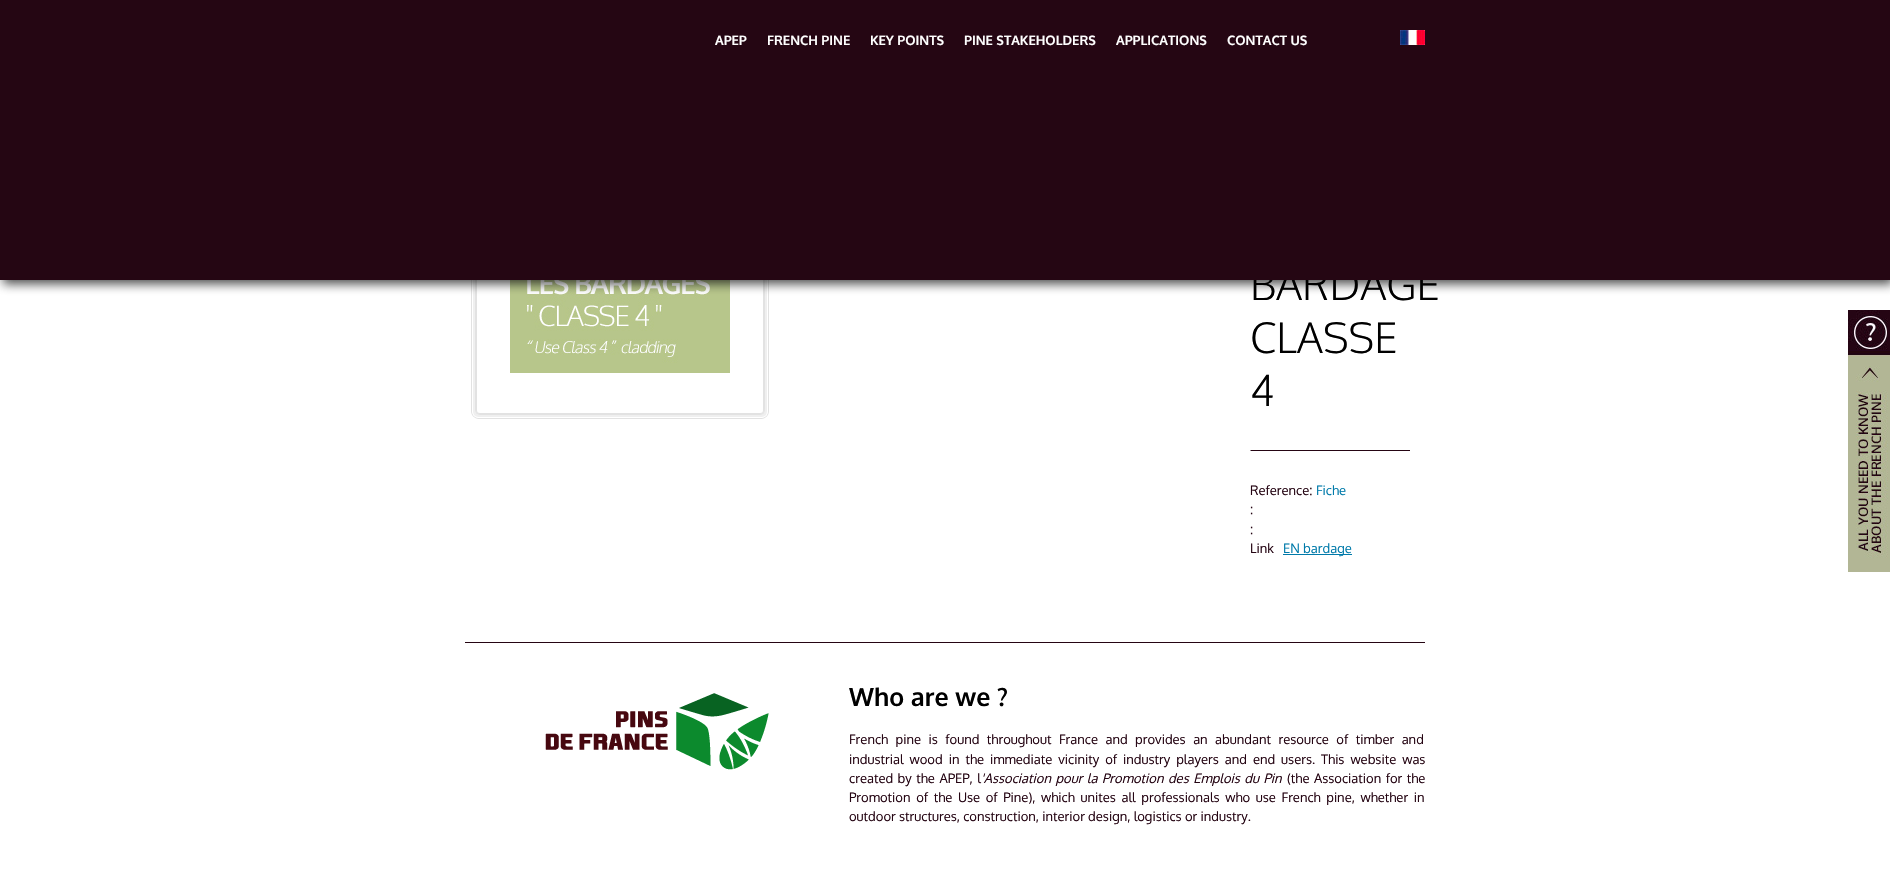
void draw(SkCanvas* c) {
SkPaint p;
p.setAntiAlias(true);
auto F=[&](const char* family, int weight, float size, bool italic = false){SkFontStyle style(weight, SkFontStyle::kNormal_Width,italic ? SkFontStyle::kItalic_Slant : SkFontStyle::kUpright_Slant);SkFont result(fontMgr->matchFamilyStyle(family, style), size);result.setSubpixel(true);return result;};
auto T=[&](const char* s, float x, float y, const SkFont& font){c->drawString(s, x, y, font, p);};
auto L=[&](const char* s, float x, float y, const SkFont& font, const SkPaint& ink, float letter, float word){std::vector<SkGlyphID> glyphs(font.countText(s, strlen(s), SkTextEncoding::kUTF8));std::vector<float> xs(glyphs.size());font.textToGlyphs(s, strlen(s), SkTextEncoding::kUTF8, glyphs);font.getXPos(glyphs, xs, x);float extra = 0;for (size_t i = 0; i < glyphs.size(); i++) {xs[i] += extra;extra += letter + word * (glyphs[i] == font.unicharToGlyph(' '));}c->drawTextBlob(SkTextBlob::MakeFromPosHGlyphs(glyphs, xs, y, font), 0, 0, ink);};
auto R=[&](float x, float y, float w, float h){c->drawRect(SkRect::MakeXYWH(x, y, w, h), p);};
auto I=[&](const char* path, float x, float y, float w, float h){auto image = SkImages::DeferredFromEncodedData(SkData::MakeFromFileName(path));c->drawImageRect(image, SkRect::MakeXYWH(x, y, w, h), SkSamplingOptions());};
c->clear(0xffffffff);
I("2.png",471,280,298,139);
I("3.png",510,280,220,93);
p.setColor(0xbf101211);
p.setMaskFilter(SkMaskFilter::MakeBlur(kNormal_SkBlurStyle, 5));
c->drawRect(SkRect::MakeXYWH(3,4,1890,280),p);
p.setMaskFilter(nullptr);
auto f1 = F("Oxygen",300,42);
p.setColor(0xff000000);
T("BARDAGE",1250,300,f1);
p.setColor(0xff250613);
R(0,0,1890,280);
auto f2 = F("Oxygen",700,13);
p.setColor(0xffffffff);
T("APEP",715,45,f2);
T("FRENCH PINE",767,45,f2);
T("KEY POINTS",870,45,f2);
T("PINE STAKEHOLDERS",964,45,f2);
T("APPLICATIONS",1116,45,f2);
T("CONTACT US",1227,45,f2);
I("1.png",1400,30,25,15);
I("4.png",1250,450,160,1);
p.setColor(0xff000000);
T("CLASSE",1250,353,f1);
T("4",1250,406,f1);
auto f3 = F("Oxygen",400,13);
p.setColor(0xff250513);
T("Reference:",1250,495,f3);
p.setColor(0xff007aaa);
T("Fiche",1316,495,f3);
p.setColor(0xff250513);
T(":",1250,514,f3);
T(":",1250,534,f3);
T("Link",1250,553,f3);
p.setColor(0xff007aaa);
R(1283,554,69,1);
T("EN bardage",1283,553,f3);
p.setColor(0xff250513);
R(465,642,960,1);
I("5.png",545,693,224,77);
auto f4 = F("Oxygen",700,25);
p.setColor(0xff000000);
T("Who are we ?",849,706,f4);
p.setColor(0xff250513);
L("French pine is found throughout France and provides an abundant resource of timber and",849,744,f3,p,0,4.25);
L("industrial wood in the immediate vicinity of industry players and end users. This website was",849,764,f3,p,0,2.75);
L("created by the APEP, l",849,783,f3,p,0,1.25);
auto f5 = F("Oxygen",400,13,true);
L("'Association pour la Promotion des Emplois du Pin",981,783,f5,p,0,1.25);
L("(the Association for the",1287,783,f3,p,0,1.25);
L("Promotion of the Use of Pine), which unites all professionals who use French pine, whether in",849,802,f3,p,0,2.4);
T("outdoor structures, construction, interior design, logistics or industry.",849,821,f3);
I("6.png",1848,310,42,262);
}
